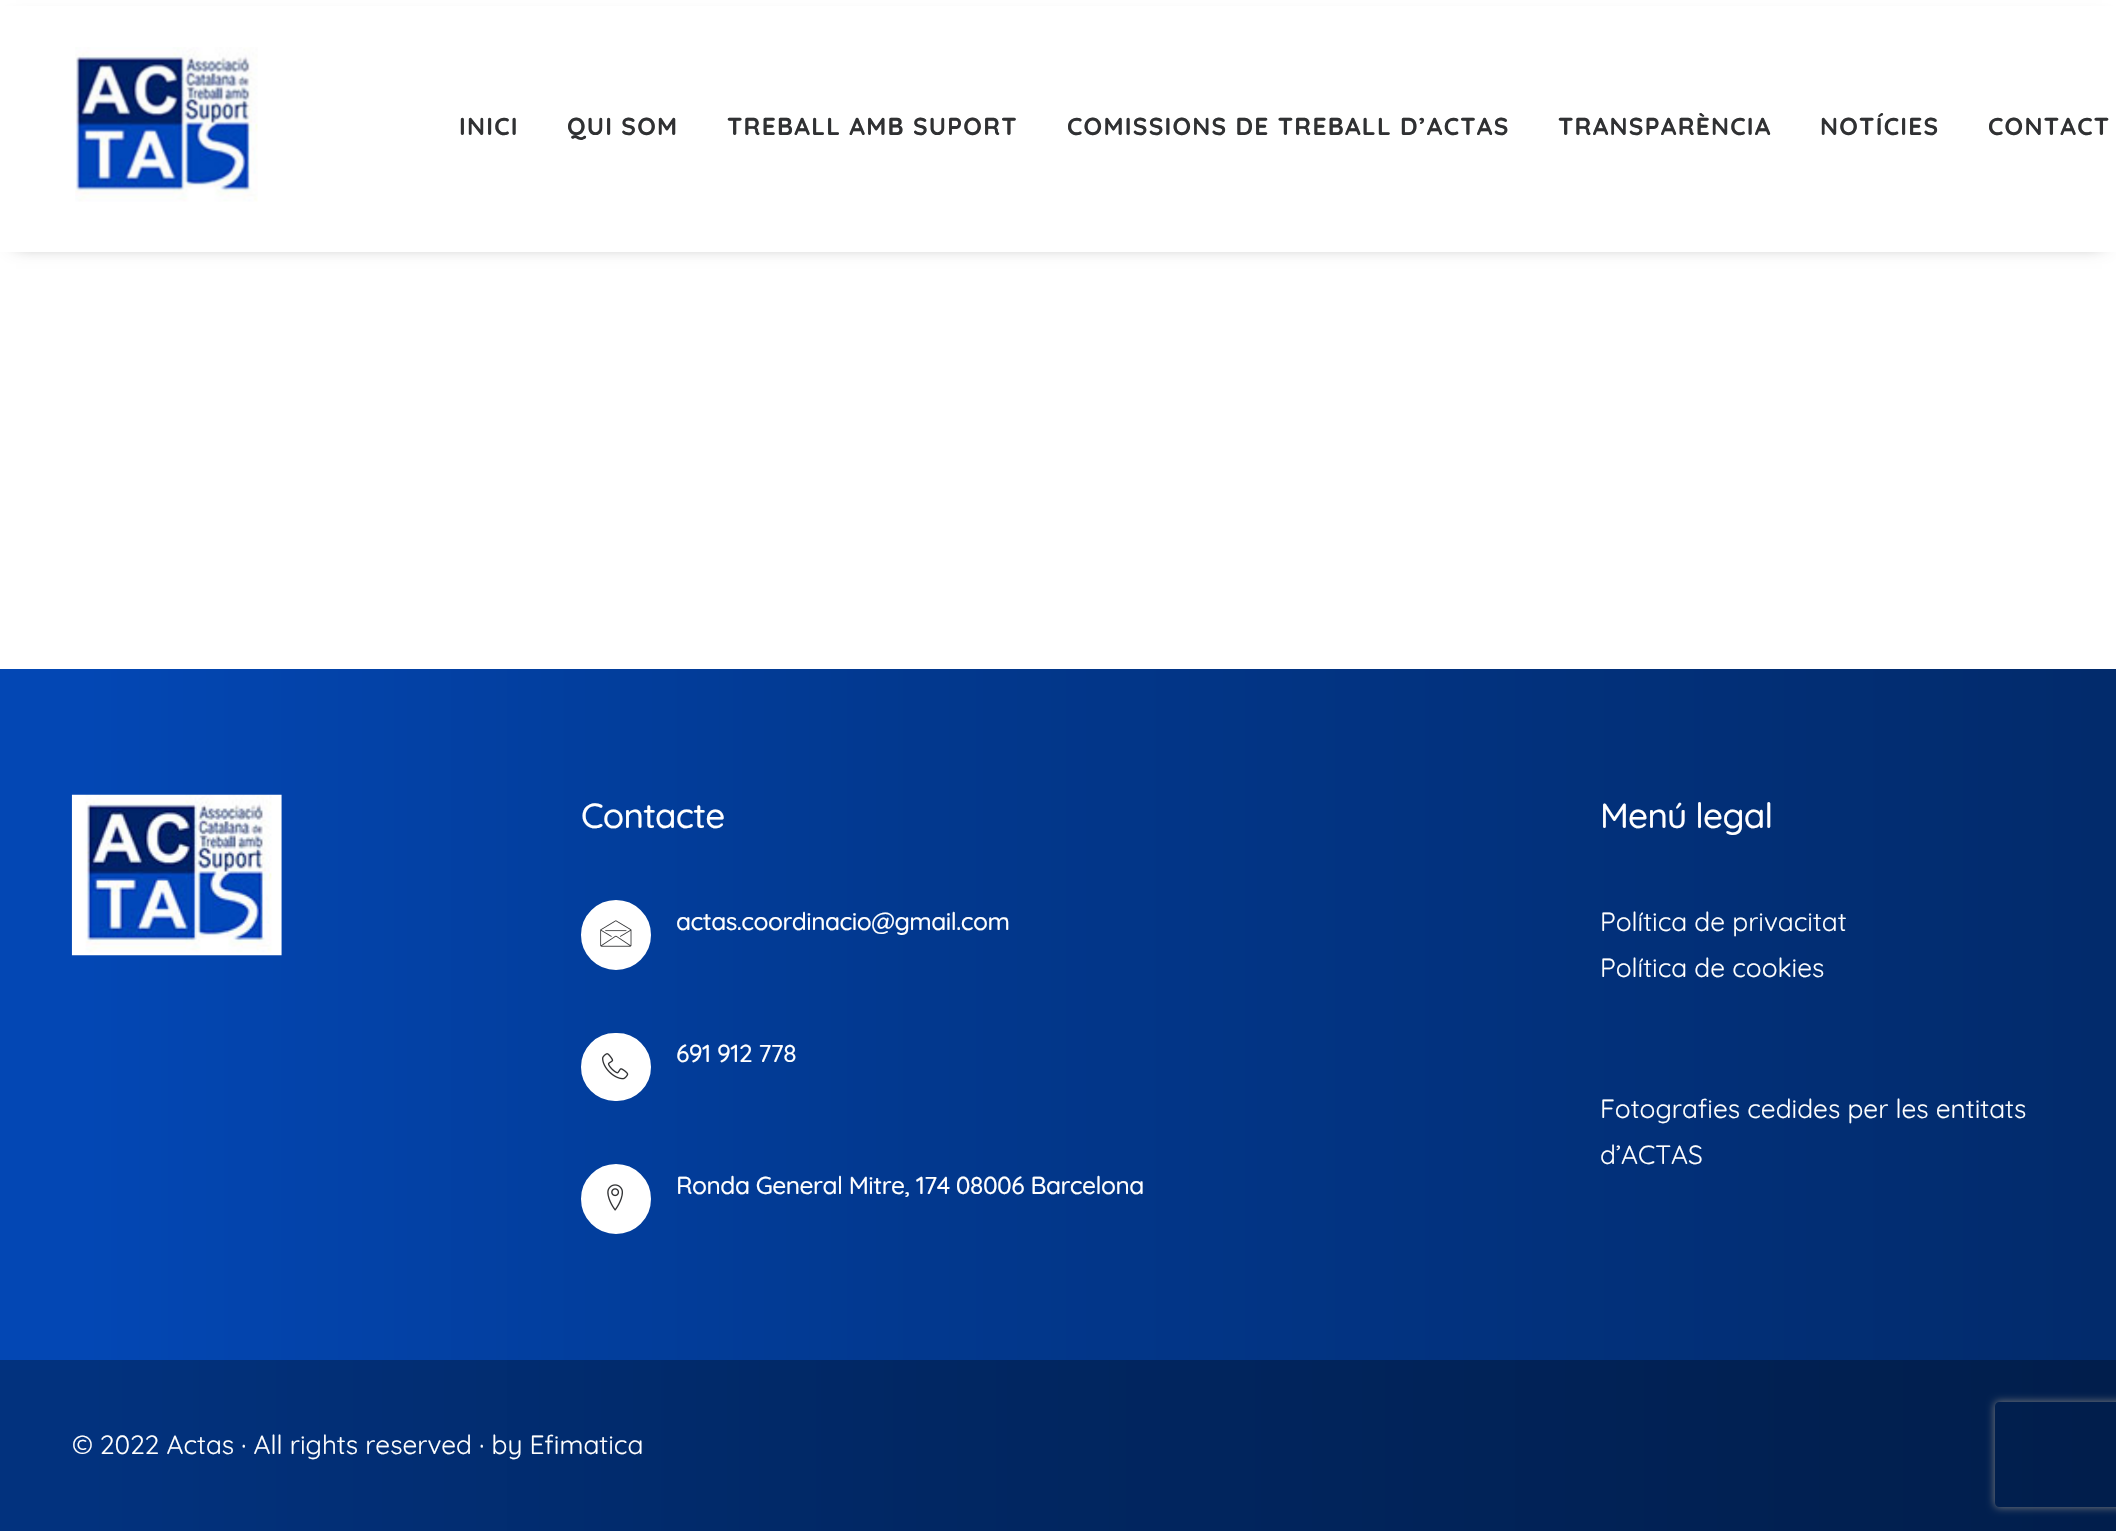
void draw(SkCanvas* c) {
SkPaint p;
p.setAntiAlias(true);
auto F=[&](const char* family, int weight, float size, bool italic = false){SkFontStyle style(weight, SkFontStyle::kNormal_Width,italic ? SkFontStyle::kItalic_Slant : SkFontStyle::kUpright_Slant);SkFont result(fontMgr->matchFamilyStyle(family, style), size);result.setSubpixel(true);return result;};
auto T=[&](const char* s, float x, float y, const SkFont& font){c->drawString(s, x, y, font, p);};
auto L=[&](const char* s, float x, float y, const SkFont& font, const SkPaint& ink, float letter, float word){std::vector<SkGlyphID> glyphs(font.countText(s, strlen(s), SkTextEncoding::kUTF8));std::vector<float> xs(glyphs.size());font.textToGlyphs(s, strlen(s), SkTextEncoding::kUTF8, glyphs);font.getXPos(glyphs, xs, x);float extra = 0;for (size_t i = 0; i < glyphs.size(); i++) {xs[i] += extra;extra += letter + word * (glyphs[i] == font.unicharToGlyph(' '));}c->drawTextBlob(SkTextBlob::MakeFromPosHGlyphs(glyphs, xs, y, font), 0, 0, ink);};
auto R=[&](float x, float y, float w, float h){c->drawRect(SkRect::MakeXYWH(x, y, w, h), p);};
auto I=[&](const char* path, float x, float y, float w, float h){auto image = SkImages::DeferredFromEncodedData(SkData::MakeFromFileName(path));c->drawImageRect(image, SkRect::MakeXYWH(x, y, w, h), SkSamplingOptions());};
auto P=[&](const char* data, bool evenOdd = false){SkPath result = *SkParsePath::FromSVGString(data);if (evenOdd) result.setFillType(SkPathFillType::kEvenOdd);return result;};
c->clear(0xffffffff);
p.setColor(0x99000000);
p.setMaskFilter(SkMaskFilter::MakeBlur(kNormal_SkBlurStyle, 9));
c->drawRect(SkRect::MakeXYWH(16,25,2086,217),p);
p.setMaskFilter(nullptr);
p.setColor(0xffffffff);
R(0,6,2116,246);
I("1.png",75,47,183,155);
auto f1 = F("Quicksand",700,24.5);
p.setColor(0xff303133);
L("INICI",459,135,f1,p,1.25,0);
L("QUI SOM",567,135,f1,p,1.25,0);
L("TREBALL AMB SUPORT",727,135,f1,p,1.25,0);
L("COMISSIONS DE TREBALL D’ACTAS",1067,135,f1,p,1.25,0);
L("TRANSPARÈNCIA",1558,135,f1,p,1.25,0);
L("NOTÍCIES",1820,135,f1,p,1.25,0);
L("CONTACT",1988,135,f1,p,1.25,0);
{
const SkColor colors[] = {0xff0347b4,0xff02388e,0xff022b6c};
const float stops[] = {.04,.44,.99};
const SkPoint ends[] = {{-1.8,1014}, {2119,1014}};
p.setShader(SkGradientShader::MakeLinear(ends, colors, stops, 3, SkTileMode::kClamp));
p.setAlpha(255);
}
R(0,669,2116,691);
I("2.png",71,794,211,162);
auto f2 = F("Quicksand",500,35);
p.setShader(nullptr);
p.setColor(0xffffffff);
L("Contacte",581,828,f2,p,-.75,0);
c->drawCircle(616,935,34,p);
p.setStroke(true);
p.setStrokeWidth(2);
c->drawCircle(616,935,34,p);
I("3.png",600,920,32,27);
auto f3 = F("Quicksand",500,24.5);
p.setStroke(false);
L("actas.coordinacio@gmail.com",676,930,f3,p,-.5,0);
c->drawRoundRect(SkRect::MakeXYWH(582,1034,68,66),33,33,p);
p.setStroke(true);
c->drawRoundRect(SkRect::MakeXYWH(582,1034,68,66),33,33,p);
I("4.png",602,1053,27,27);
p.setStroke(false);
L("691 912 778",676,1062,f3,p,-.5,0);
c->drawCircle(616,1199,34,p);
p.setStroke(true);
c->drawCircle(616,1199,34,p);
I("5.png",607,1184,16,27);
p.setStroke(false);
L("Ronda General Mitre, 174 08006 Barcelona",676,1194,f3,p,-.5,0);
L("Menú legal",1600,828,f2,p,-.75,0);
auto f4 = F("Quicksand",400,26.25);
T("Política de privacitat",1600,931,f4);
T("Política de cookies",1600,977,f4);
T("Fotografies cedides per les entitats",1600,1118,f4);
T("d’ACTAS",1600,1164,f4);
{
const SkColor colors[] = {0xff02327e,0xff012763,0xff011e4c};
const float stops[] = {.04,.44,.99};
const SkPoint ends[] = {{-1.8,1446}, {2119,1446}};
p.setShader(SkGradientShader::MakeLinear(ends, colors, stops, 3, SkTileMode::kClamp));
p.setAlpha(255);
}
R(0,1360,2116,171);
p.setShader(nullptr);
p.setColor(0xffffffff);
T("© 2022 Actas · All rights reserved · by Efimatica",72,1454,f4);
c->save();
c->clipPath(P("M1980 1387h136v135h-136zm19 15h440c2 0 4 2 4 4v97c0 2-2 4-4 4h-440c-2 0-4-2-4-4v-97c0-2 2-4 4-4z",true),true);
p.setColor(0xff808080);
p.setMaskFilter(SkMaskFilter::MakeBlur(kNormal_SkBlurStyle, 4.5));
c->drawRoundRect(SkRect::MakeXYWH(1995,1402,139,105),4,4,p);
p.setMaskFilter(nullptr);
c->restore();
}
